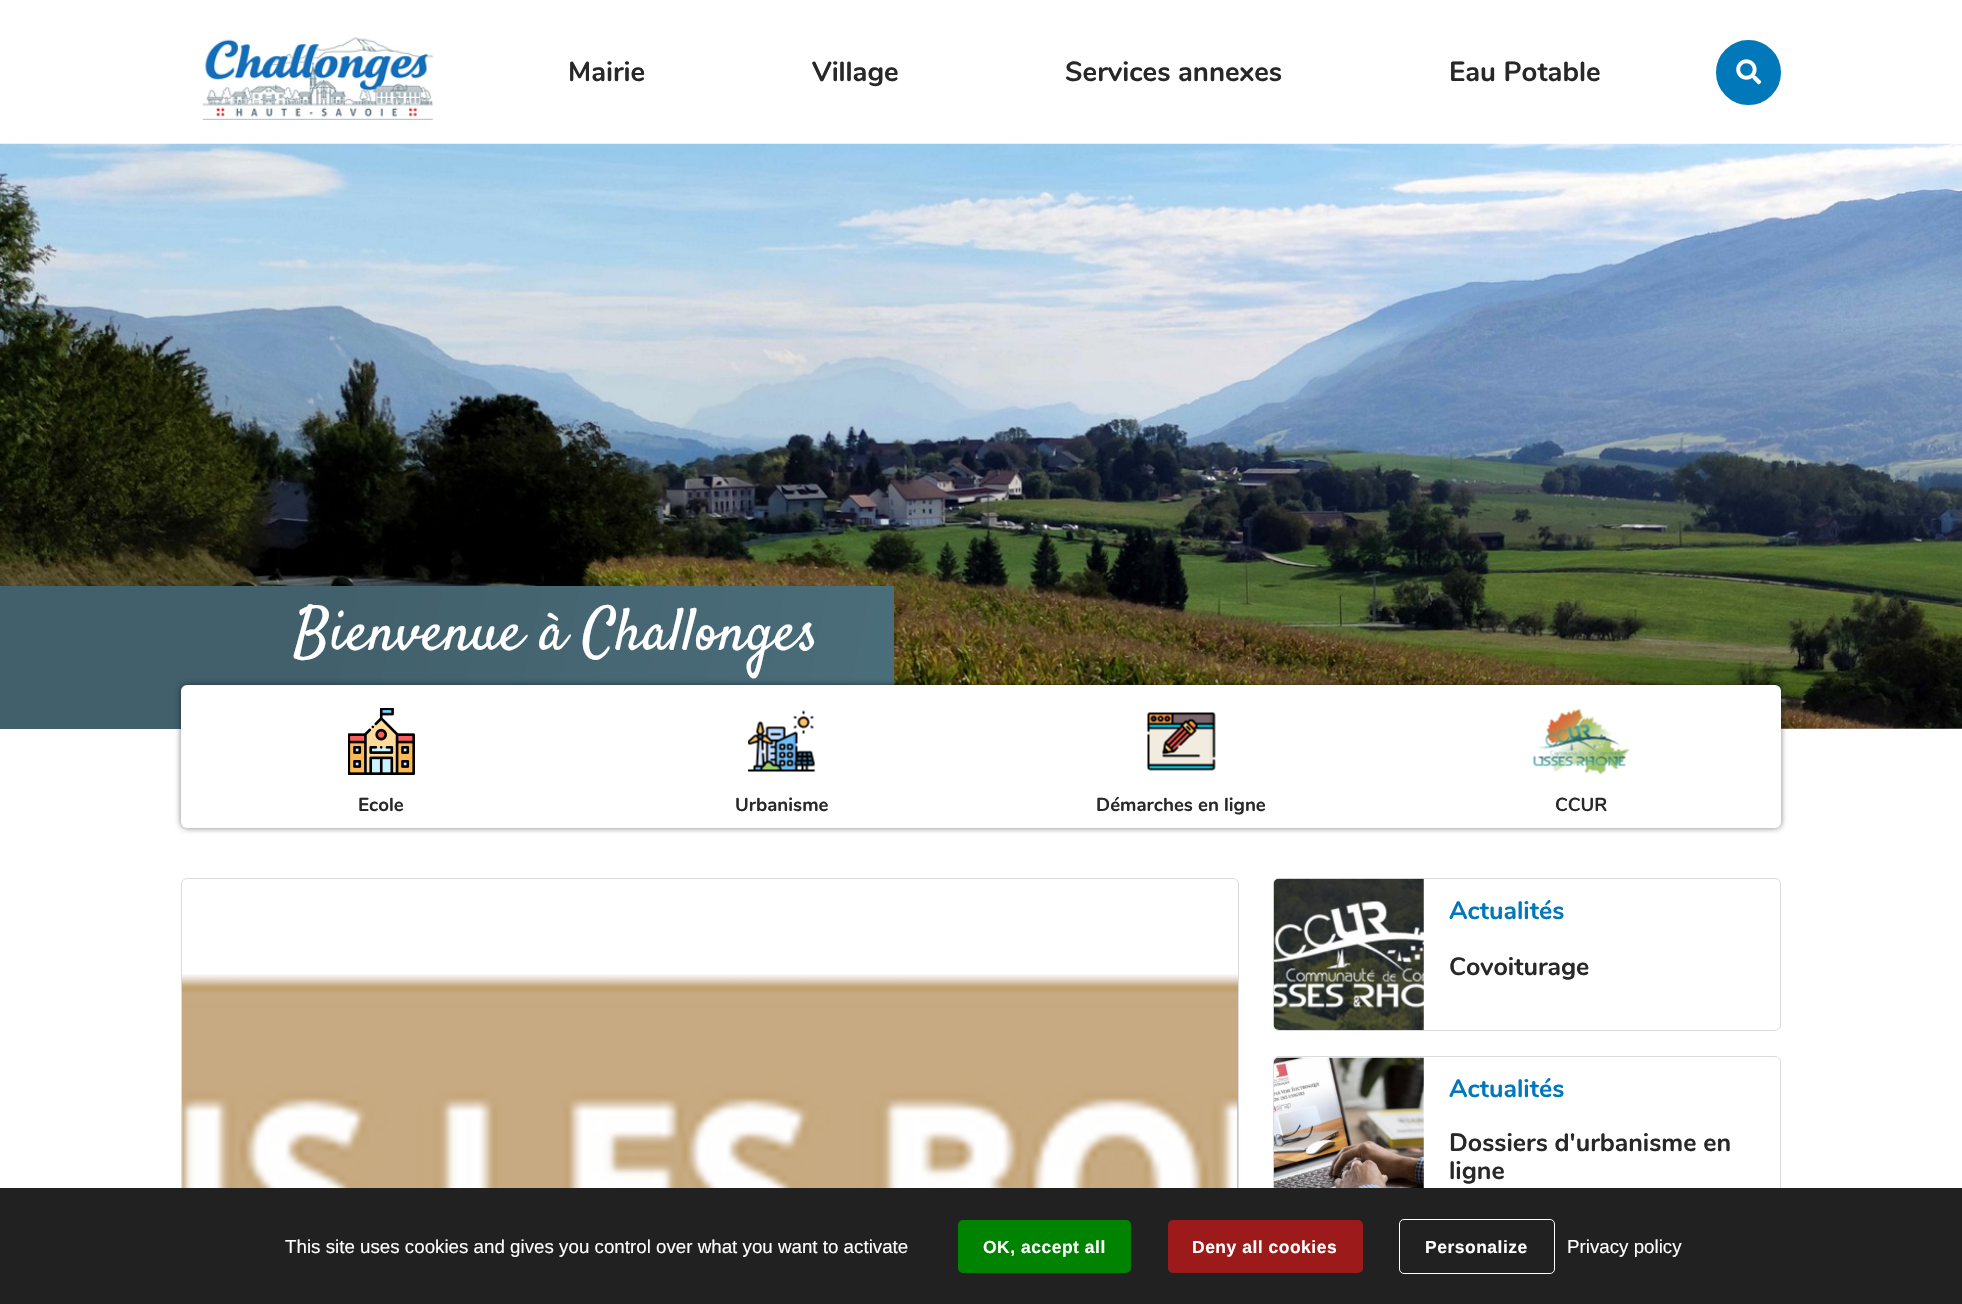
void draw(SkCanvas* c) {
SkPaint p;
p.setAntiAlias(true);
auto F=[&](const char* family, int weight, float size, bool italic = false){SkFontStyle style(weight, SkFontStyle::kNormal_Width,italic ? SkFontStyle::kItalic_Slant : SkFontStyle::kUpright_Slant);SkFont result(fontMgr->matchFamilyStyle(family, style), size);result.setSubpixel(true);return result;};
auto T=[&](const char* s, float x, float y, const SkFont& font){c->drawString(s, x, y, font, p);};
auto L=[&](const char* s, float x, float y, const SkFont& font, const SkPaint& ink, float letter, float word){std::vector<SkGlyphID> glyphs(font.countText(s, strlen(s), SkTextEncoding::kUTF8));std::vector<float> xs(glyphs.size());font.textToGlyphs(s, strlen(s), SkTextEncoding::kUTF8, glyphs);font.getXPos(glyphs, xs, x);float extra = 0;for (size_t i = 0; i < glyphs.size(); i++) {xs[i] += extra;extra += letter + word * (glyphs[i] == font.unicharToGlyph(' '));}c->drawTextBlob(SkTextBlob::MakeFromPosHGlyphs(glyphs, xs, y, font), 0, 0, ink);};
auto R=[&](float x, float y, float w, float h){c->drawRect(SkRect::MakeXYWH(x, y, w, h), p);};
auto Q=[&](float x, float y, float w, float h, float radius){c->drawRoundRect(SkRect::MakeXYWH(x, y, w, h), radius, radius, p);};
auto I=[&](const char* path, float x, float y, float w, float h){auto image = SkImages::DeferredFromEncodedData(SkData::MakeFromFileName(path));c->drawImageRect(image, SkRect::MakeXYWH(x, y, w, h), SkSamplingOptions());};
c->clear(0xffffffff);
I("1.png",202,37,232,83);
auto f1 = F("Nunito",700,27.5);
p.setColor(0xff282828);
T("Mairie",568,81,f1);
T("Village",812,81,f1);
T("Services annexes",1065,81,f1);
T("Eau Potable",1449,81,f1);
p.setColor(0xff0078ba);
c->drawCircle(1748.5,72.5,31,p);
p.setStroke(true);
p.setStrokeWidth(3);
c->drawCircle(1748.5,72.5,31,p);
I("2.png",1736,59,26,26);
I("3.png",0,143,1962,586);
p.setStroke(false);
{
const SkColor colors[] = {0xff41606b,0xff4b6e7b};
const float stops[] = {.36,1};
const SkPoint ends[] = {{4.5,565}, {901,753}};
p.setShader(SkGradientShader::MakeLinear(ends, colors, stops, 2, SkTileMode::kClamp));
p.setAlpha(255);
}
R(0,586,894,143);
auto f2 = F("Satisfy",400,60);
p.setShader(nullptr);
p.setColor(0xffffffff);
T("Bienvenue à Challonges",294,649,f2);
p.setColor(0x80000000);
p.setMaskFilter(SkMaskFilter::MakeBlur(kNormal_SkBlurStyle, 3));
c->drawRoundRect(SkRect::MakeXYWH(181,685,1600,143),6,6,p);
p.setMaskFilter(nullptr);
p.setColor(0xffffffff);
Q(181,685,1600,143,6);
I("4.png",348,708,67,67);
auto f3 = F("Nunito",700,18.75);
p.setColor(0xff282828);
T("Ecole",358,811,f3);
I("5.png",748,710,68,62);
T("Urbanisme",735,811,f3);
I("6.png",1147,712,69,59);
T("Démarches en ligne",1096,811,f3);
I("7.png",1533,708,97,67);
T("CCUR",1555,811,f3);
I("8.png",182,974,1056,214);
p.setStroke(true);
p.setStrokeWidth(1);
p.setColor(0xffd9dbde);
c->drawRoundRect(SkRect::MakeXYWH(181.5,878.5,1057,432),5.5,5.5,p);
c->drawRoundRect(SkRect::MakeXYWH(1273.5,878.5,507,152),5.5,5.5,p);
I("9.png",1273,878,151,152);
auto f4 = F("Nunito",700,25);
p.setStroke(false);
p.setColor(0xff0078ba);
T("Actualités",1449,919,f4);
p.setColor(0xff282828);
T("Covoiturage",1449,975,f4);
p.setStroke(true);
p.setColor(0xffd9dbde);
c->drawRoundRect(SkRect::MakeXYWH(1273.5,1056.5,507,153),5.5,5.5,p);
I("10.png",1273,1057,151,131);
p.setStroke(false);
p.setColor(0xff0078ba);
T("Actualités",1449,1097,f4);
p.setColor(0xff282828);
T("Dossiers d'urbanisme en",1449,1151,f4);
T("ligne",1449,1179,f4);
p.setColor(0xff212121);
R(0,1188,1962,116);
auto f5 = F("Liberation Sans",400,18.75);
p.setColor(0xffffffff);
T("This site uses cookies and gives you control over what you want to activate",285,1253,f5);
p.setColor(0xff008300);
Q(958,1220,173,53,5);
auto f6 = F("Liberation Sans",700,17.5);
p.setColor(0xffffffff);
L("OK, accept all",983,1253,f6,p,.5,0);
p.setColor(0xff9c1a1a);
Q(1168,1220,195,53,5);
p.setColor(0xffffffff);
L("Deny all cookies",1192,1253,f6,p,.5,0);
p.setStroke(true);
c->drawRoundRect(SkRect::MakeXYWH(1399.5,1219.5,155,54),4.5,4.5,p);
p.setStroke(false);
L("Personalize",1425,1253,f6,p,.5,0);
T("Privacy policy",1567,1253,f5);
}
